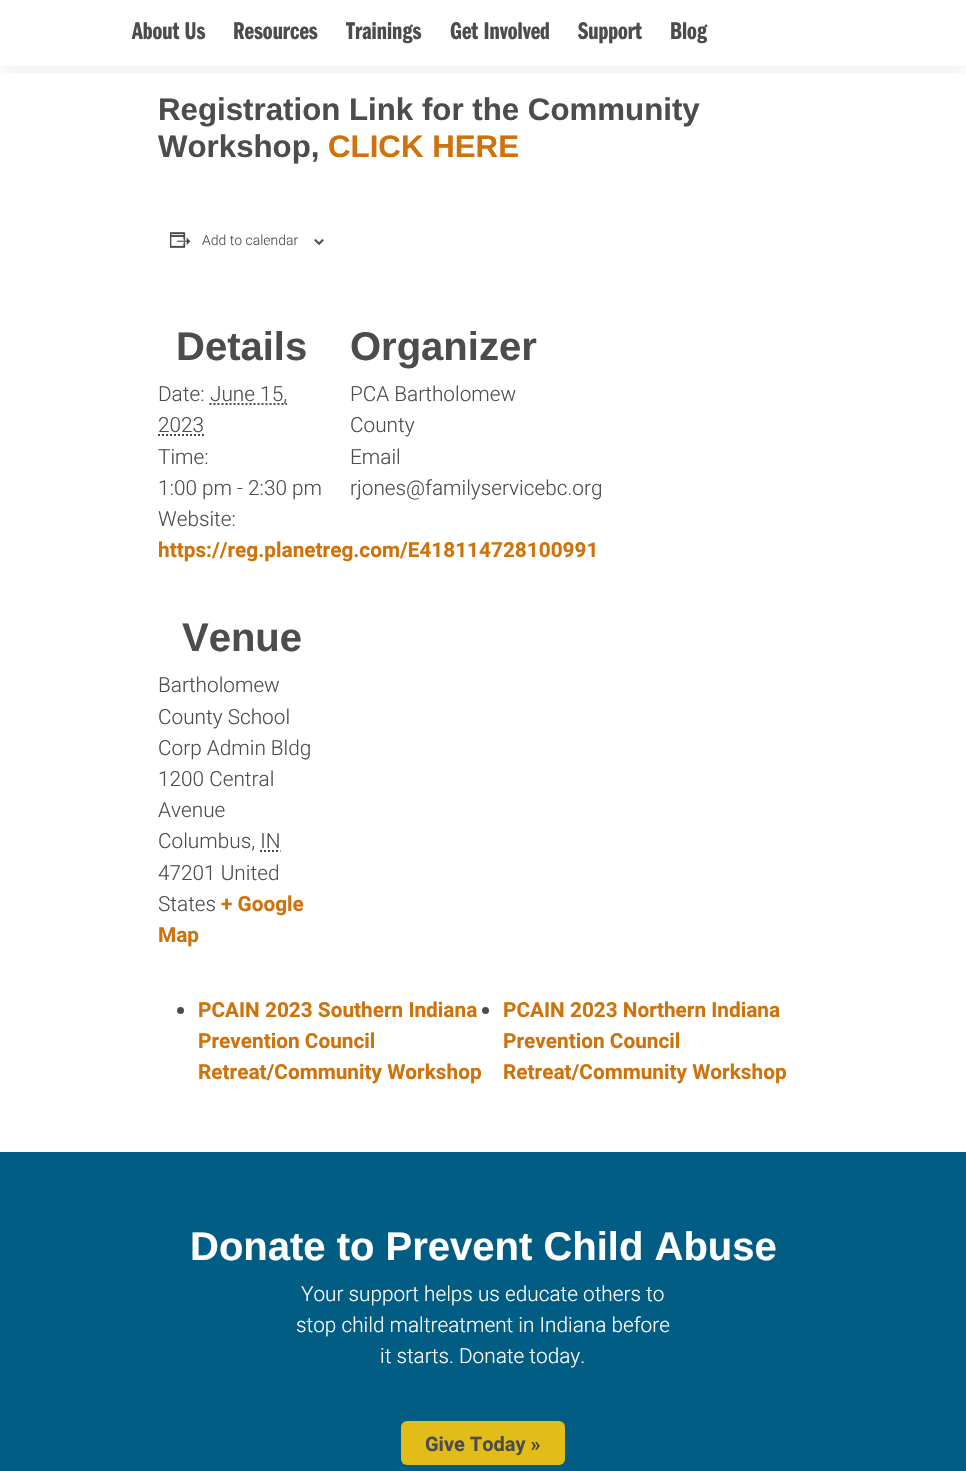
void draw(SkCanvas* c) {
SkPaint p;
p.setAntiAlias(true);
auto F=[&](const char* family, int weight, float size, bool italic = false){SkFontStyle style(weight, SkFontStyle::kNormal_Width,italic ? SkFontStyle::kItalic_Slant : SkFontStyle::kUpright_Slant);SkFont result(fontMgr->matchFamilyStyle(family, style), size);result.setSubpixel(true);return result;};
auto T=[&](const char* s, float x, float y, const SkFont& font){c->drawString(s, x, y, font, p);};
auto R=[&](float x, float y, float w, float h){c->drawRect(SkRect::MakeXYWH(x, y, w, h), p);};
auto Q=[&](float x, float y, float w, float h, float radius){c->drawRoundRect(SkRect::MakeXYWH(x, y, w, h), radius, radius, p);};
auto I=[&](const char* path, float x, float y, float w, float h){auto image = SkImages::DeferredFromEncodedData(SkData::MakeFromFileName(path));c->drawImageRect(image, SkRect::MakeXYWH(x, y, w, h), SkSamplingOptions());};
auto P=[&](const char* data, bool evenOdd = false){SkPath result = *SkParsePath::FromSVGString(data);if (evenOdd) result.setFillType(SkPathFillType::kEvenOdd);return result;};
c->clear(0xffffffff);
c->save();
c->clipRect(SkRect::MakeXYWH(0,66,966,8));
p.setColor(0x1a000000);
p.setMaskFilter(SkMaskFilter::MakeBlur(kNormal_SkBlurStyle, 10));
c->drawRect(SkRect::MakeXYWH(0,0,966,66),p);
p.setMaskFilter(nullptr);
c->restore();
auto f1 = F("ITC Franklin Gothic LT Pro",600,25);
p.setColor(0xff4c4c4c);
T("About Us",132,39,f1);
T("Resources",233,39,f1);
T("Trainings",346,39,f1);
T("Get Involved",450,39,f1);
T("Support",578,39,f1);
T("Blog",670,39,f1);
auto f2 = F("Liberation Sans",700,31.25);
T("Registration Link for the Community",158,120,f2);
T("Workshop,",158,157,f2);
p.setColor(0xffce720c);
T("CLICK HERE",328,157,f2);
I("1.png",170,232,21,16);
auto f3 = F("Roboto",300,14);
p.setColor(0xff4c4c4c);
T("Add to calendar",202,245,f3);
I("2.png",314,239,10,6);
auto f4 = F("Liberation Sans",700,40);
T("Details",176,360,f4);
auto f5 = F("Roboto",300,20.8);
T("Date:",158,401,f5);
p.setStroke(true);
p.setStrokeWidth(2);
p.setPathEffect(SkDashPathEffect::Make({{2,2}}, 0));
c->drawPath(P("M209.5 404h77.5"),p);
p.setPathEffect(nullptr);
p.setStroke(false);
T("June 15,",210,401,f5);
T("2023",158,432,f5);
p.setStroke(true);
p.setPathEffect(SkDashPathEffect::Make({{2,2}}, 0));
c->drawPath(P("M158 435h46"),p);
p.setPathEffect(nullptr);
p.setStroke(false);
T("Time:",158,464,f5);
T("1:00 pm - 2:30 pm",158,495,f5);
T("Website:",158,526,f5);
auto f6 = F("Roboto",700,20.8);
p.setColor(0xffce720c);
T("https://reg.planetreg.com/E418114728100991",158,557,f6);
p.setColor(0xff4c4c4c);
T("Organizer",350,360,f4);
T("PCA Bartholomew",350,401,f5);
T("County",350,432,f5);
T("Email",350,464,f5);
T("rjones@familyservicebc.org",350,495,f5);
T("Venue",182,651,f4);
T("Bartholomew",158,692,f5);
T("County School",158,724,f5);
T("Corp Admin Bldg",158,755,f5);
T("1200 Central",158,786,f5);
T("Avenue",158,817,f5);
T("Columbus, IN",158,848,f5);
p.setStroke(true);
p.setPathEffect(SkDashPathEffect::Make({{2,2}}, 0));
c->drawPath(P("M260 851h20.5"),p);
p.setPathEffect(nullptr);
p.setStroke(false);
T("47201 United",158,880,f5);
T("States",158,911,f5);
p.setColor(0xffce720c);
T("+ Google",221,911,f6);
T("Map",158,942,f6);
p.setColor(0xff4c4c4c);
c->drawCircle(180.5,1010.5,3.5,p);
p.setColor(0xffce720c);
T("PCAIN 2023 Southern Indiana",198,1017,f6);
T("Prevention Council",198,1048,f6);
T("Retreat/Community Workshop",198,1079,f6);
p.setColor(0xff4c4c4c);
c->drawCircle(485.5,1010.5,3.5,p);
p.setColor(0xffce720c);
T("PCAIN 2023 Northern Indiana",503,1017,f6);
T("Prevention Council",503,1048,f6);
T("Retreat/Community Workshop",503,1079,f6);
p.setColor(0xff025d84);
R(0,1152,966,319);
p.setColor(0xffffffff);
T("Donate to Prevent Child Abuse",190,1260,f4);
T("Your support helps us educate others to",301,1301,f5);
T("stop child maltreatment in Indiana before",296,1332,f5);
T("it starts. Donate today.",380,1363,f5);
p.setColor(0xffe2bd19);
Q(401,1421,164,44,6);
auto f7 = F("Roboto",700,20);
p.setColor(0xff4c4c4c);
T("Give Today »",425,1451,f7);
}
